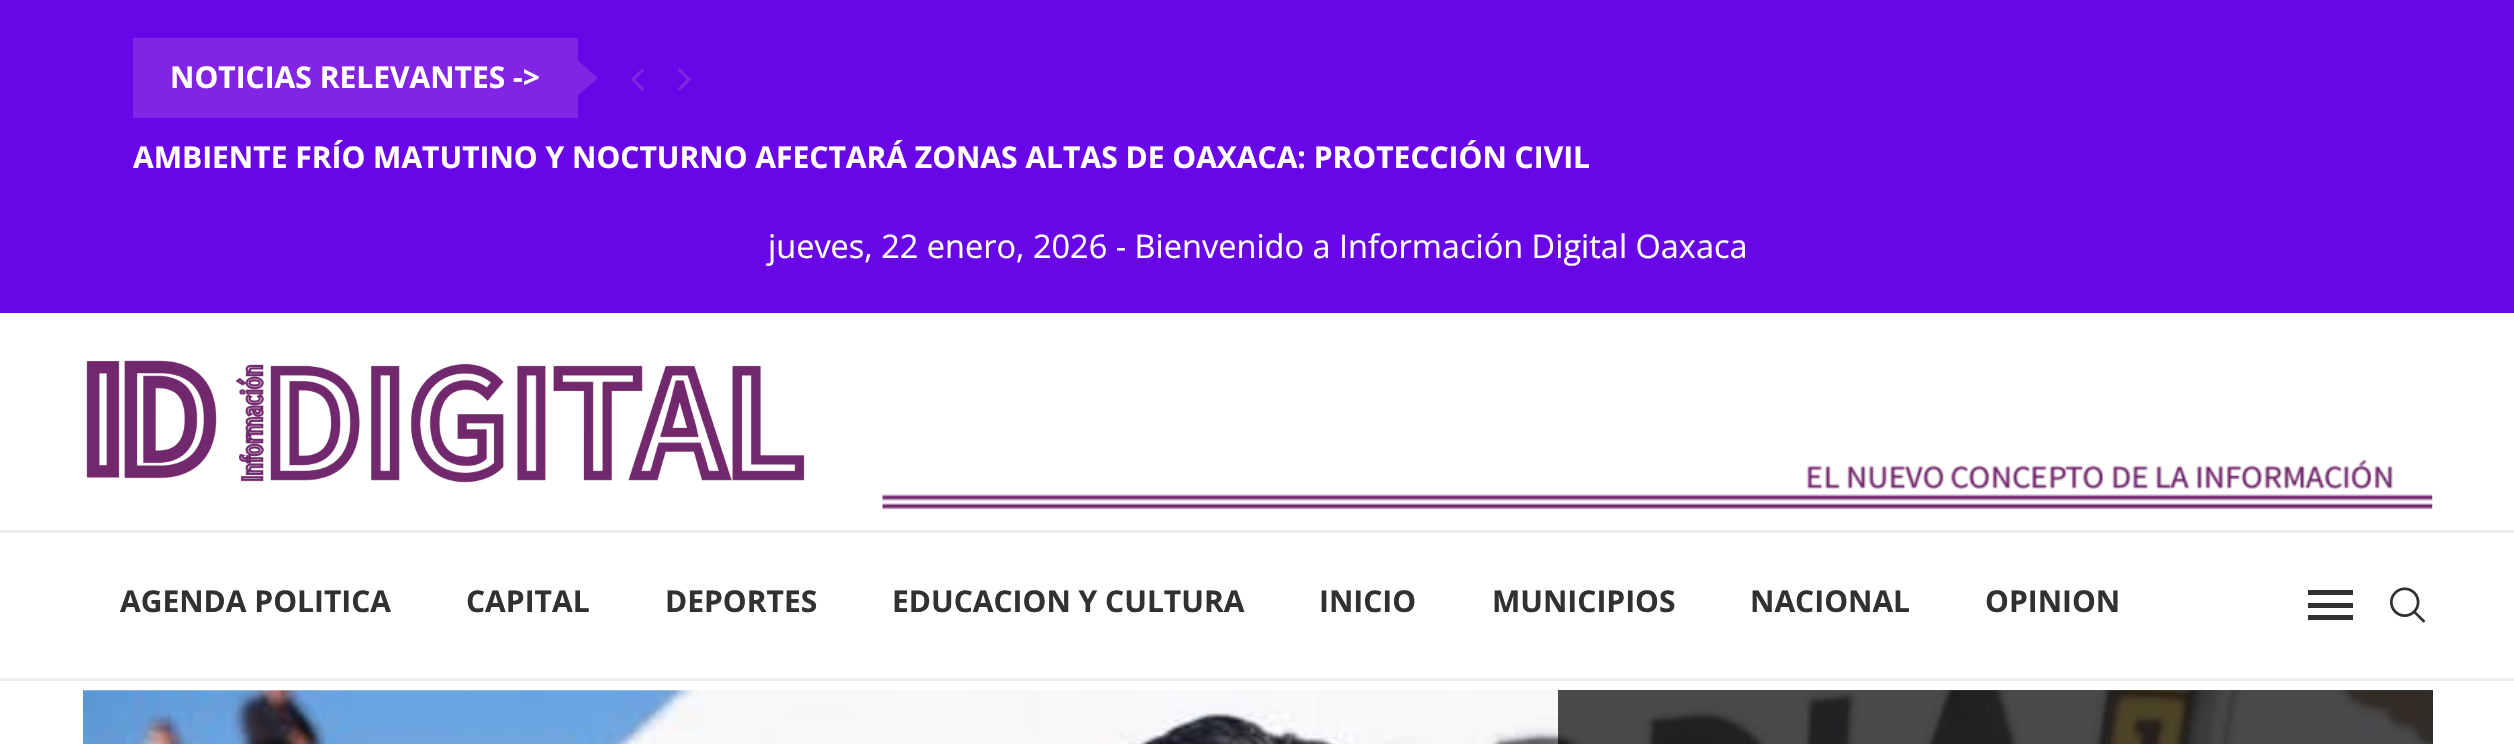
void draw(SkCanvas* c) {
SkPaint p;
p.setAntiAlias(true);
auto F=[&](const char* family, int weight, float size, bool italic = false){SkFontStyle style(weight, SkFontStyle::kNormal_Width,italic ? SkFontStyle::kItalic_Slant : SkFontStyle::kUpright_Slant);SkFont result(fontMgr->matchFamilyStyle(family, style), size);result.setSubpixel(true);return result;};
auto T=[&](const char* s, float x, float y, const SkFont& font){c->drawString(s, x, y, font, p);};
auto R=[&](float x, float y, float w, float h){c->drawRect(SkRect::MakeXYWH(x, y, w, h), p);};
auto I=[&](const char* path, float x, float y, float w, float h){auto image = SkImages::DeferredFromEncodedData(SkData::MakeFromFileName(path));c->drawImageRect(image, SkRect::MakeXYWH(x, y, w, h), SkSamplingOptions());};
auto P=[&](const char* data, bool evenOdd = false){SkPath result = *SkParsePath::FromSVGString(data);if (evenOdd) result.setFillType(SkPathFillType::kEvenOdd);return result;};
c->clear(0xffffffff);
p.setColor(0xff6806e8);
R(0,0,2514,313);
p.setColor(0xff8224e3);
R(133,38,445,80);
auto f1 = F("Open Sans",700,30);
p.setColor(0xffffffff);
T("NOTICIAS RELEVANTES ->",170,88,f1);
p.setColor(0xff8224e3);
c->drawPath(P("M575 98v-40l23 20z"),p);
I("1.png",631,68,13,23);
I("2.png",678,68,13,23);
p.setColor(0xffffffff);
T("AMBIENTE FRÍO MATUTINO Y NOCTURNO AFECTARÁ ZONAS ALTAS DE OAXACA: PROTECCIÓN CIVIL",133,168,f1);
auto f2 = F("Open Sans",400,32.5);
T("jueves, 22 enero, 2026 - Bienvenido a Información Digital Oaxaca",768,258,f2);
I("3.png",86,360,719,123);
I("4.png",882,459,1551,51);
p.setColor(0xffececec);
R(0,530,2514,3);
R(0,678,2514,3);
p.setColor(0xff313131);
T("AGENDA POLITICA",120,612,f1);
T("CAPITAL",466,612,f1);
T("DEPORTES",665,612,f1);
T("EDUCACION Y CULTURA",892,612,f1);
T("INICIO",1319,612,f1);
T("MUNICIPIOS",1492,612,f1);
T("NACIONAL",1750,612,f1);
T("OPINION",1985,612,f1);
R(2308,590,45,5);
R(2308,615,45,5);
R(2308,603,45,5);
I("5.png",2390,587,35,36);
I("6.png",83,690,2350,54);
p.setColor(0xb3000000);
R(1558,690,875,54);
}
